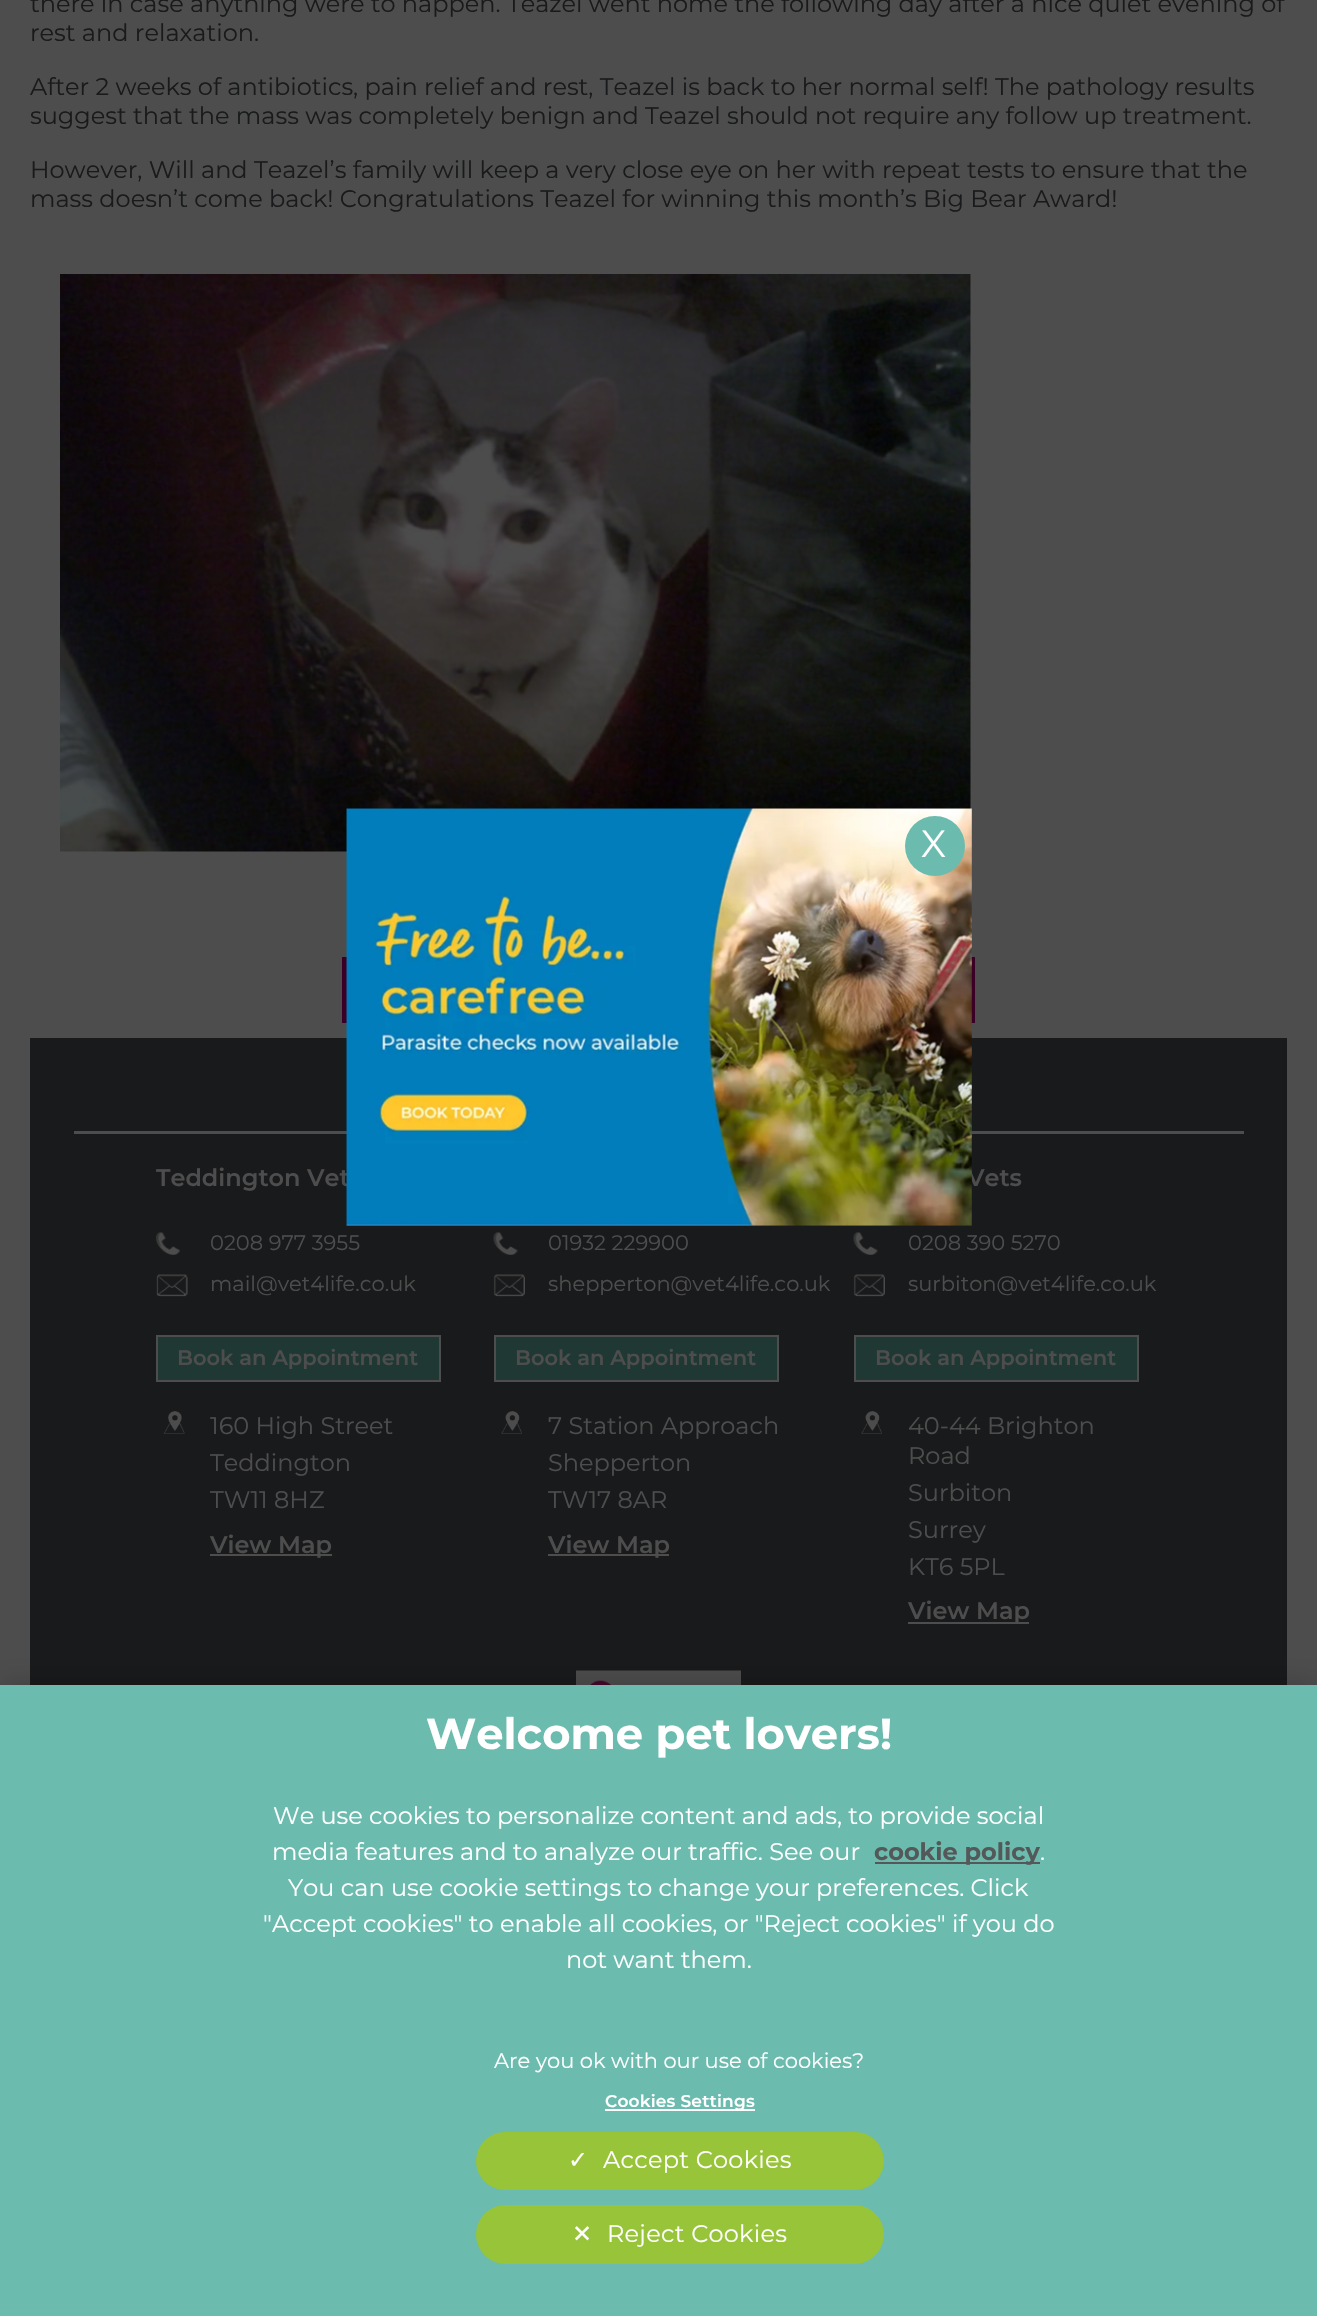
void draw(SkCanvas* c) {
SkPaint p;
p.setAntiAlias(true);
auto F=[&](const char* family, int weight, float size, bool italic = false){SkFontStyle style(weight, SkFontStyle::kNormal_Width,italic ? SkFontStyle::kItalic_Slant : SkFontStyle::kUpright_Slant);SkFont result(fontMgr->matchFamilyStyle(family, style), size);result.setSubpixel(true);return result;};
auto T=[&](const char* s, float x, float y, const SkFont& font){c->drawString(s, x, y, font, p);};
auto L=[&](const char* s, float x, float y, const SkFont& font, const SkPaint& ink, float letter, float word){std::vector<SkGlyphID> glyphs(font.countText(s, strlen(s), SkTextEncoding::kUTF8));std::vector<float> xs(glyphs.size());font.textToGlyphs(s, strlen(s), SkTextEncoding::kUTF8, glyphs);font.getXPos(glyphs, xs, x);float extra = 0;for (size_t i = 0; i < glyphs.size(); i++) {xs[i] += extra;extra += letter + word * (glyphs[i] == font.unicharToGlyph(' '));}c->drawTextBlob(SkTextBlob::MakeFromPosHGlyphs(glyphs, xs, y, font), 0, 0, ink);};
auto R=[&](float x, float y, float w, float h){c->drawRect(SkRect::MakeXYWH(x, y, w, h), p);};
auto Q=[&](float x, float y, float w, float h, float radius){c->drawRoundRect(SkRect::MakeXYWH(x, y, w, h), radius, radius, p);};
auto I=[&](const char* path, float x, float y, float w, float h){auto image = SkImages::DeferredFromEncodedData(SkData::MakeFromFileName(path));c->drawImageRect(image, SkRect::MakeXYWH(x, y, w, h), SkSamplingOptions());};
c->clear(0xff4d4d4d);
auto f1 = F("Montserrat",400,24);
p.setColor(0xff191a1b);
T("there in case anything were to happen. Teazel went home the following day after a nice quiet evening of",30,12,f1);
T("rest and relaxation.",30,41,f1);
T("After 2 weeks of antibiotics, pain relief and rest, Teazel is back to her normal self! The pathology results",30,95,f1);
T("suggest that the mass was completely benign and Teazel should not require any follow up treatment.",30,124,f1);
T("However, Will and Teazel’s family will keep a very close eye on her with repeat tests to ensure that the",30,178,f1);
T("mass doesn’t come back! Congratulations Teazel for winning this month’s Big Bear Award!",30,207,f1);
I("1.png",60,274,911,578);
p.setColor(0xff3b0025);
R(342,957,633,66);
p.setColor(0xff191a1b);
R(30,1038,1257,647);
p.setColor(0xff4d4d4d);
R(74,1131,1170,3);
auto f2 = F("Montserrat",600,24);
T("Teddington Vet",156,1186,f2);
I("2.png",156,1232,24,23);
auto f3 = F("Montserrat",400,21);
T("0208 977 3955",210,1250,f3);
I("3.png",156,1274,32,23);
T("mail@vet4life.co.uk",210,1291,f3);
p.setColor(0xff203834);
c->drawRect(SkRect::MakeXYWH(157,1336,283,45),p);
p.setStroke(true);
p.setStrokeWidth(2);
p.setColor(0xff4d4d4d);
c->drawRect(SkRect::MakeXYWH(157,1336,283,45),p);
auto f4 = F("Montserrat",600,21);
p.setStroke(false);
T("Book an Appointment",177,1365,f4);
I("4.png",163,1411,22,23);
T("160 High Street",210,1434,f1);
T("Teddington",210,1471,f1);
T("TW11 8HZ",210,1508,f1);
R(210,1554,122,2);
T("View Map",210,1553,f2);
I("5.png",493,1232,25,23);
T("01932 229900",548,1250,f3);
I("6.png",493,1274,32,23);
T("shepperton@vet4life.co.uk",548,1291,f3);
p.setColor(0xff203834);
c->drawRect(SkRect::MakeXYWH(495,1336,283,45),p);
p.setStroke(true);
p.setColor(0xff4d4d4d);
c->drawRect(SkRect::MakeXYWH(495,1336,283,45),p);
p.setStroke(false);
T("Book an Appointment",515,1365,f4);
I("7.png",501,1411,21,23);
T("7 Station Approach",548,1434,f1);
T("Shepperton",548,1471,f1);
T("TW17 8AR",548,1508,f1);
R(548,1554,121,2);
T("View Map",548,1553,f2);
T("Vets",967,1186,f2);
I("8.png",853,1232,25,23);
T("0208 390 5270",908,1250,f3);
I("9.png",853,1274,32,23);
T("surbiton@vet4life.co.uk",908,1291,f3);
p.setColor(0xff203834);
c->drawRect(SkRect::MakeXYWH(855,1336,283,45),p);
p.setStroke(true);
p.setColor(0xff4d4d4d);
c->drawRect(SkRect::MakeXYWH(855,1336,283,45),p);
p.setStroke(false);
T("Book an Appointment",875,1365,f4);
I("10.png",861,1411,21,23);
T("40-44 Brighton",908,1434,f1);
T("Road",908,1464,f1);
T("Surbiton",908,1501,f1);
T("Surrey",908,1538,f1);
T("KT6 5PL",908,1575,f1);
R(908,1622,121,2);
T("View Map",908,1619,f2);
I("11.png",576,1670,165,15);
I("12.png",346,808,626,418);
p.setColor(0xff6bbbae);
c->drawCircle(935,846,30,p);
auto f5 = F("Montserrat",400,38);
p.setColor(0xffffffff);
T("X",921,857,f5);
p.setColor(0x33000000);
p.setMaskFilter(SkMaskFilter::MakeBlur(kNormal_SkBlurStyle, 13.5));
c->drawRect(SkRect::MakeXYWH(0,1685,1317,631),p);
p.setMaskFilter(nullptr);
p.setColor(0xff6bbbae);
R(0,1685,1317,631);
auto f6 = F("Montserrat",700,43.25);
p.setColor(0xffffffff);
T("Welcome pet lovers!",426,1749,f6);
T("We use cookies to personalize content and ads, to provide social",273,1824,f1);
T("media features and to analyze our traffic. See our",272,1860,f1);
p.setColor(0xff545859);
R(875,1862,165,2);
auto f7 = F("Montserrat",700,24);
T("cookie policy",874,1860,f7);
p.setColor(0xffffffff);
T(".",1040,1860,f1);
T("You can use cookie settings to change your preferences. Click",288,1896,f1);
T("\"Accept cookies\" to enable all cookies, or \"Reject cookies\" if you do",263,1932,f1);
T("not want them.",566,1968,f1);
T("Are you ok with our use of cookies?",494,2068,f3);
R(605,2109,150,2);
auto f8 = F("Montserrat",600,17);
L("Cookies Settings",605,2107,f8,p,.2,0);
p.setColor(0xff97c439);
Q(476,2132,408,58,29);
auto f9 = F("DejaVu Sans",400,24);
p.setColor(0xffffffff);
L("✓",568,2168,f9,p,.25,0);
L("Accept Cookies",603,2168,f1,p,.25,0);
p.setColor(0xff97c439);
Q(476,2205,408,59,29.5);
p.setColor(0xffffffff);
L("✕",572,2242,f9,p,.25,0);
L("Reject Cookies",607,2242,f1,p,.25,0);
}
